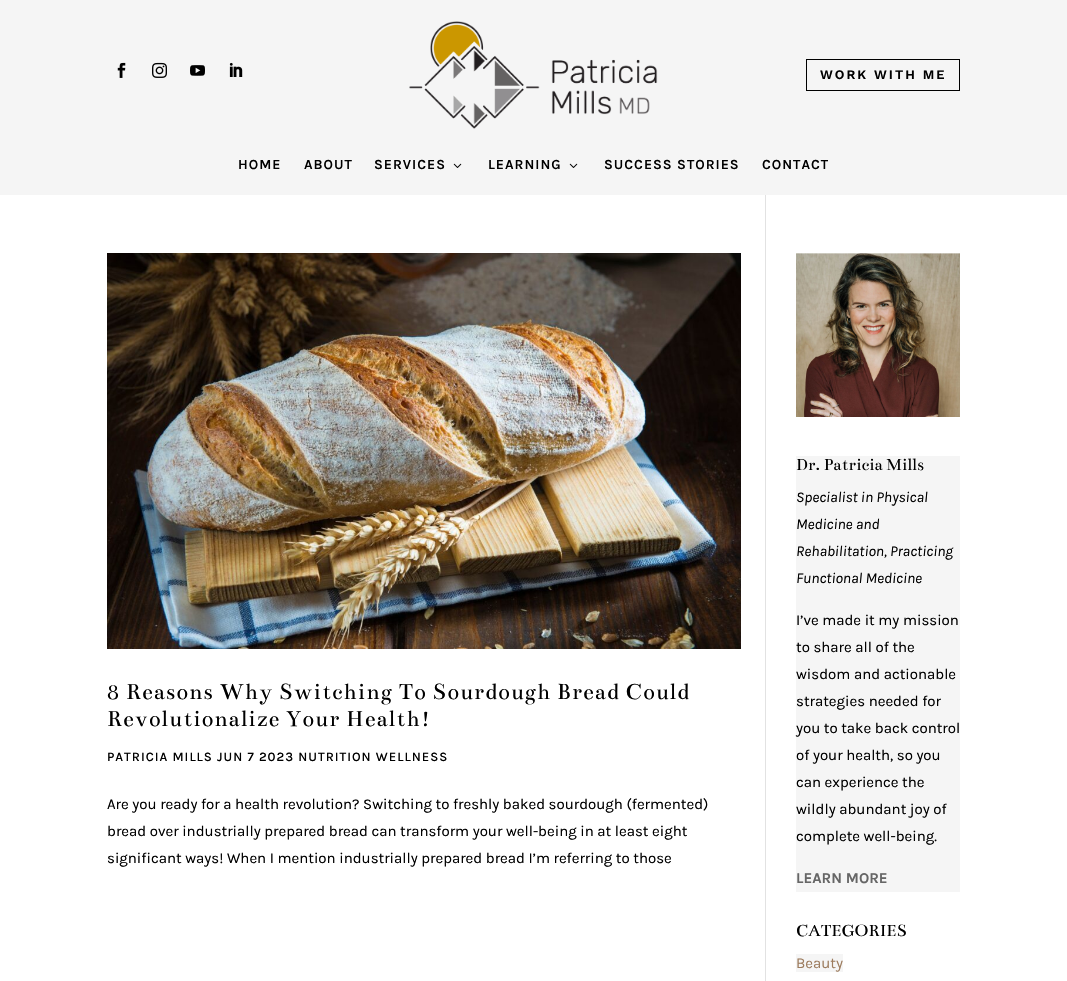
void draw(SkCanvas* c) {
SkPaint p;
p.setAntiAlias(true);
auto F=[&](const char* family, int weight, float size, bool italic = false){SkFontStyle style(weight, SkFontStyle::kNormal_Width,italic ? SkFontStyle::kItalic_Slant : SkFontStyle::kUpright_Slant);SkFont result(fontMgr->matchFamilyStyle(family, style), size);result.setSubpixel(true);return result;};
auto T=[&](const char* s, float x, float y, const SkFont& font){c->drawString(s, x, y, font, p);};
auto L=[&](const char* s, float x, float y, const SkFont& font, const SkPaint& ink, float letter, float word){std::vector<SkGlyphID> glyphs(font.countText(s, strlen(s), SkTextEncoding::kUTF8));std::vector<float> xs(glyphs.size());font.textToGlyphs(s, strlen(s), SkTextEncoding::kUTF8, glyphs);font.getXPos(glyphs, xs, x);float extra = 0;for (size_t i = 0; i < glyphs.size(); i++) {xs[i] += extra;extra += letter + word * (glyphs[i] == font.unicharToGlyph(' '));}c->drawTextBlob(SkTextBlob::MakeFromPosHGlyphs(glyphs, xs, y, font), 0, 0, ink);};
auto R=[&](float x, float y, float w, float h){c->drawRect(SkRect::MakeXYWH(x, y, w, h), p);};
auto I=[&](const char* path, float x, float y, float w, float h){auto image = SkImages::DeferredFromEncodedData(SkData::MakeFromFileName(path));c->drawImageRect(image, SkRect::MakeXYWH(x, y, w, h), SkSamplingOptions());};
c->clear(0xffffffff);
p.setColor(0xfff5f5f5);
R(0,0,1067,195);
I("1.png",117,62,9,16);
I("2.png",152,62,15,16);
I("3.png",190,65,15,11);
I("4.png",229,62,14,15);
I("5.png",409,21,249,108);
p.setStroke(true);
p.setStrokeWidth(1);
p.setColor(0xff000000);
c->drawRect(SkRect::MakeXYWH(806.5,59.5,153,31),p);
auto f1 = F("Work Sans",600,13);
p.setStroke(false);
L("WORK WITH ME",820,79,f1,p,2,0);
auto f2 = F("Karla",600,14);
L("HOME",238,169,f2,p,1,0);
L("ABOUT",304,169,f2,p,1,0);
L("SERVICES",374,169,f2,p,1,0);
I("6.png",453,163,9,5);
L("LEARNING",488,169,f2,p,1,0);
I("6.png",569,163,9,5);
L("SUCCESS STORIES",604,169,f2,p,1,0);
L("CONTACT",762,169,f2,p,1,0);
p.setColor(0xffe2e2e2);
R(765,195,1,786);
I("7.png",107,253,634,396);
auto f3 = F("Bentham",400,24.25);
p.setColor(0xff000000);
L("8 Reasons Why Switching To Sourdough Bread Could",107,699,f3,p,1,0);
L("Revolutionalize Your Health!",107,726,f3,p,1,0);
auto f4 = F("Karla",500,13);
L("PATRICIA MILLS JUN 7 2023 NUTRITION WELLNESS",107,761,f4,p,1,0);
auto f5 = F("Karla",400,15);
T("Are you ready for a health revolution? Switching to freshly baked sourdough (fermented)",107,809,f5);
T("bread over industrially prepared bread can transform your well-being in at least eight",107,836,f5);
T("significant ways! When I mention industrially prepared bread I’m referring to those",107,863,f5);
I("8.png",796,253,164,164);
p.setColor(0xfff5f5f5);
R(796,456,164,436);
auto f6 = F("Bentham",400,18);
p.setColor(0xff000000);
T("Dr. Patricia Mills",796,470,f6);
auto f7 = F("Karla",400,15,true);
T("Specialist in Physical",796,502,f7);
T("Medicine and",796,529,f7);
T("Rehabilitation, Practicing",796,556,f7);
T("Functional Medicine",796,583,f7);
T("I’ve made it my mission",796,625,f5);
T("to share all of the",796,652,f5);
T("wisdom and actionable",796,679,f5);
T("strategies needed for",796,706,f5);
T("you to take back control",796,733,f5);
T("of your health, so you",796,760,f5);
T("can experience the",796,787,f5);
T("wildly abundant joy of",796,814,f5);
T("complete well-being.",796,841,f5);
auto f8 = F("Karla",700,15);
p.setColor(0xff666666);
T("LEARN MORE",796,883,f8);
p.setColor(0xff000000);
T("CATEGORIES",796,936,f6);
p.setColor(0xfff5f5f5);
R(796,954,47,18);
p.setColor(0xff9d7c5e);
T("Beauty",796,968,f5);
}
